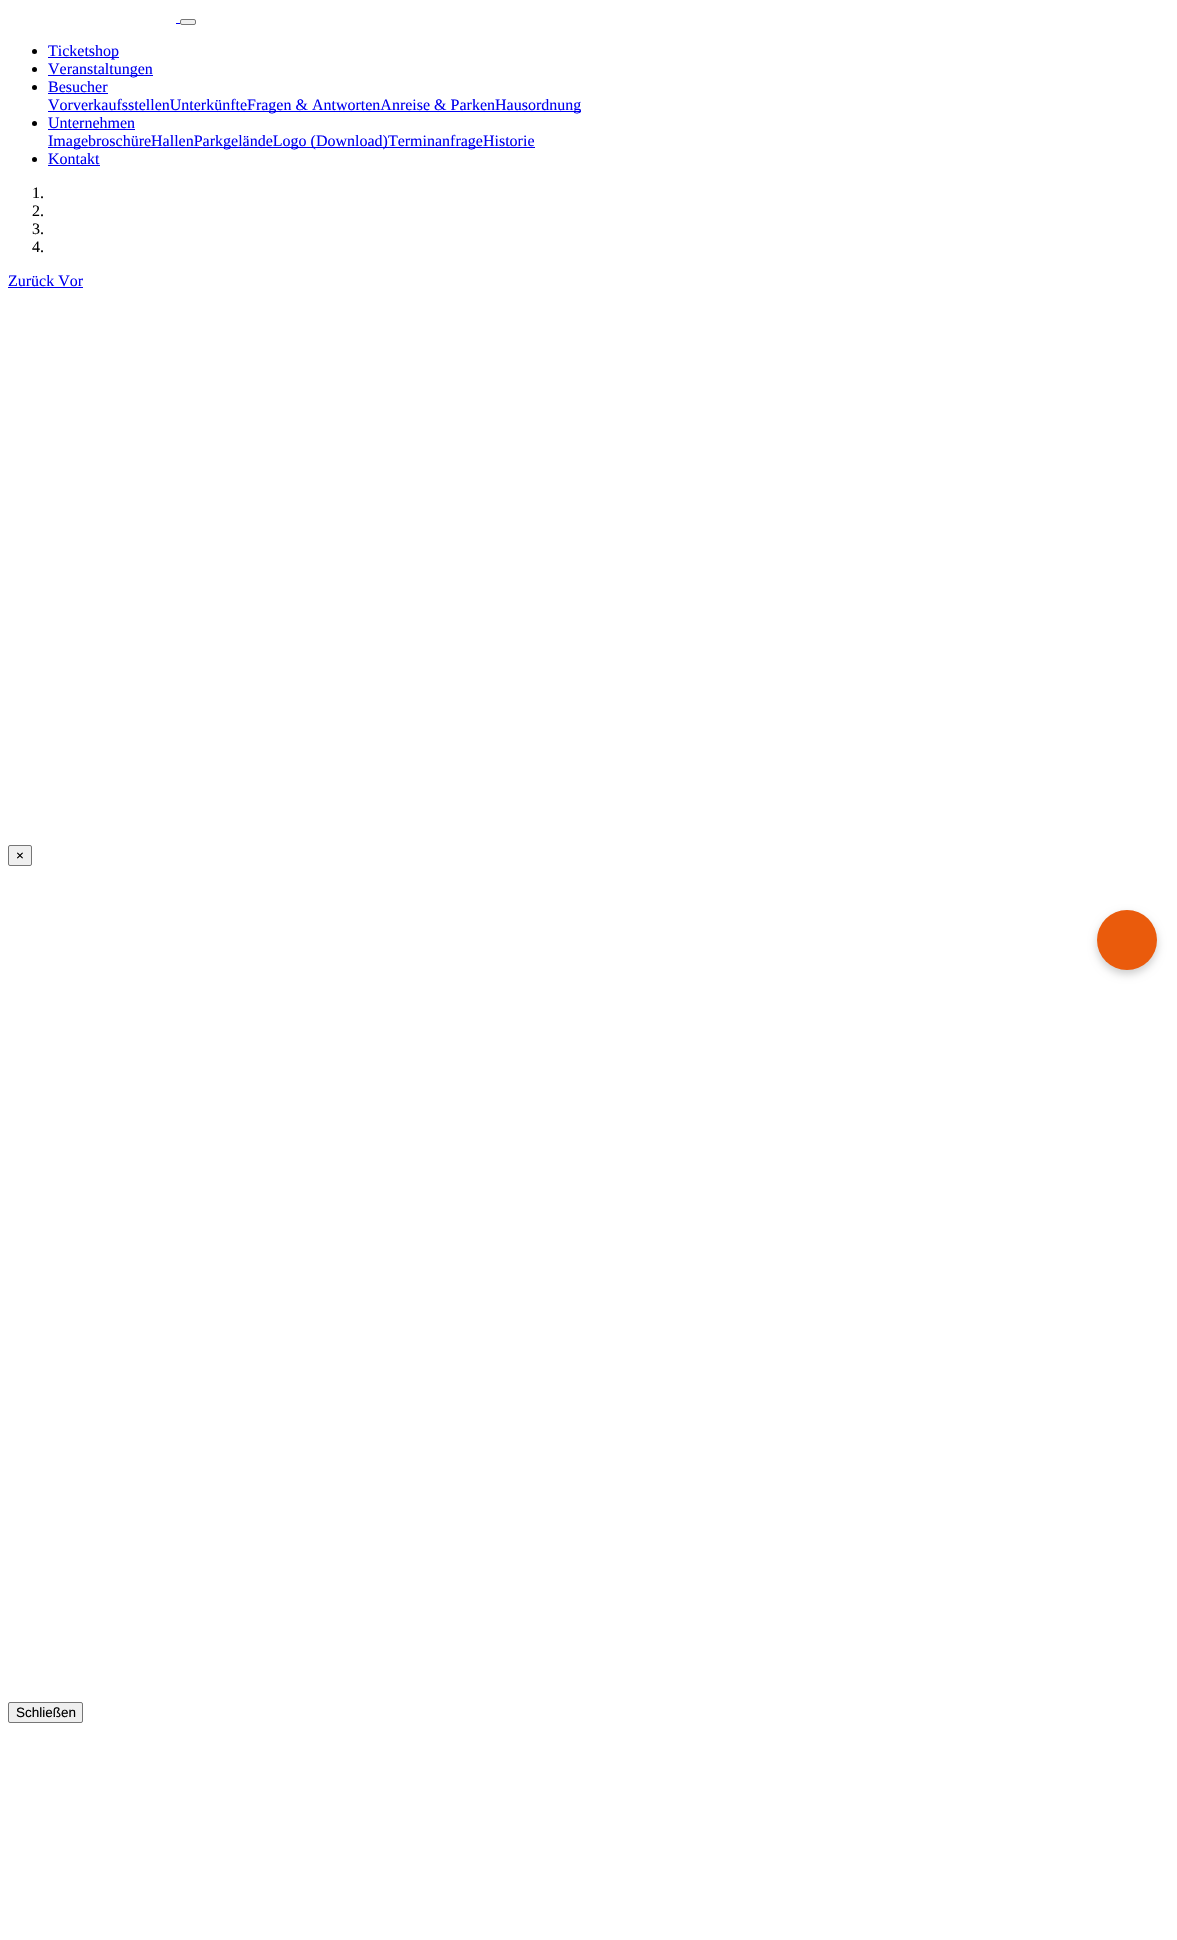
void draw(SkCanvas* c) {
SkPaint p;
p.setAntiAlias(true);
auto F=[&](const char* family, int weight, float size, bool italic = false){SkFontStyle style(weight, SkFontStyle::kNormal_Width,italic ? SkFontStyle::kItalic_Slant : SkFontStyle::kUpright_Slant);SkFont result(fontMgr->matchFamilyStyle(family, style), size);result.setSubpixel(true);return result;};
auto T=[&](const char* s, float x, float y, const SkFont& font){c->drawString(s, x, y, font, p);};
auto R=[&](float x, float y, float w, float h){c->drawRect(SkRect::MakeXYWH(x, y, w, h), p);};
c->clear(0xffffffff);
p.setColor(0xff0000ee);
R(176,23,4,1);
p.setColor(0xffefefef);
c->drawRoundRect(SkRect::MakeXYWH(180.5,19.5,15,5),1.5,1.5,p);
p.setStroke(true);
p.setStrokeWidth(1);
p.setColor(0xff767676);
c->drawRoundRect(SkRect::MakeXYWH(180.5,19.5,15,5),1.5,1.5,p);
p.setStroke(false);
p.setColor(0xff000000);
c->drawCircle(34.5,51.5,2.5,p);
p.setColor(0xff0000ee);
R(48,57,71,1);
auto f1 = F("Liberation Serif",400,16);
T("Ticketshop",48,56,f1);
p.setColor(0xff000000);
c->drawCircle(34.5,69.5,2.5,p);
p.setColor(0xff0000ee);
R(48,75,105,1);
T("Veranstaltungen",48,74,f1);
p.setColor(0xff000000);
c->drawCircle(34.5,87.5,2.5,p);
p.setColor(0xff0000ee);
T("Besucher",48,92,f1);
R(48,93,60,1);
R(48,111,332,1);
T("VorverkaufsstellenUnterkünfteFragen & AntwortenAnreise & Parken",48,110,f1);
R(380,111,201,1);
T("Hausordnung",495,110,f1);
p.setColor(0xff000000);
c->drawCircle(34.5,123.5,2.5,p);
p.setColor(0xff0000ee);
T("Unternehmen",48,128,f1);
R(48,129,87,1);
R(48,147,487,1);
T("ImagebroschüreHallenParkgeländeLogo (Download)TerminanfrageHistorie",48,146,f1);
p.setColor(0xff000000);
c->drawCircle(34.5,159.5,2.5,p);
p.setColor(0xff0000ee);
T("Kontakt",48,164,f1);
R(48,165,52,1);
p.setColor(0xff000000);
T("1.",32,198,f1);
T("2.",32,216,f1);
T("3.",32,234,f1);
T("4.",32,252,f1);
p.setColor(0xff0000ee);
T("Zurück Vor",8,286,f1);
R(8,287,75,1);
p.setColor(0xffefefef);
c->drawRoundRect(SkRect::MakeXYWH(8.5,845.5,23,20),1.5,1.5,p);
p.setStroke(true);
p.setColor(0xff767676);
c->drawRoundRect(SkRect::MakeXYWH(8.5,845.5,23,20),1.5,1.5,p);
auto f2 = F("Liberation Sans",400,13.5);
p.setStroke(false);
p.setColor(0xff000000);
T("×",16,860,f2);
p.setColor(0xffefefef);
c->drawRoundRect(SkRect::MakeXYWH(8.5,1702.5,74,20),1.5,1.5,p);
p.setStroke(true);
p.setColor(0xff767676);
c->drawRoundRect(SkRect::MakeXYWH(8.5,1702.5,74,20),1.5,1.5,p);
p.setStroke(false);
p.setColor(0xff000000);
T("Schließen",16,1717,f2);
p.setColor(0x33000000);
p.setMaskFilter(SkMaskFilter::MakeBlur(kNormal_SkBlurStyle, 4));
c->drawRoundRect(SkRect::MakeXYWH(1097,914,60,60),30,30,p);
p.setMaskFilter(nullptr);
p.setColor(0xffea5b0c);
c->drawCircle(1127,940,30,p);
}
